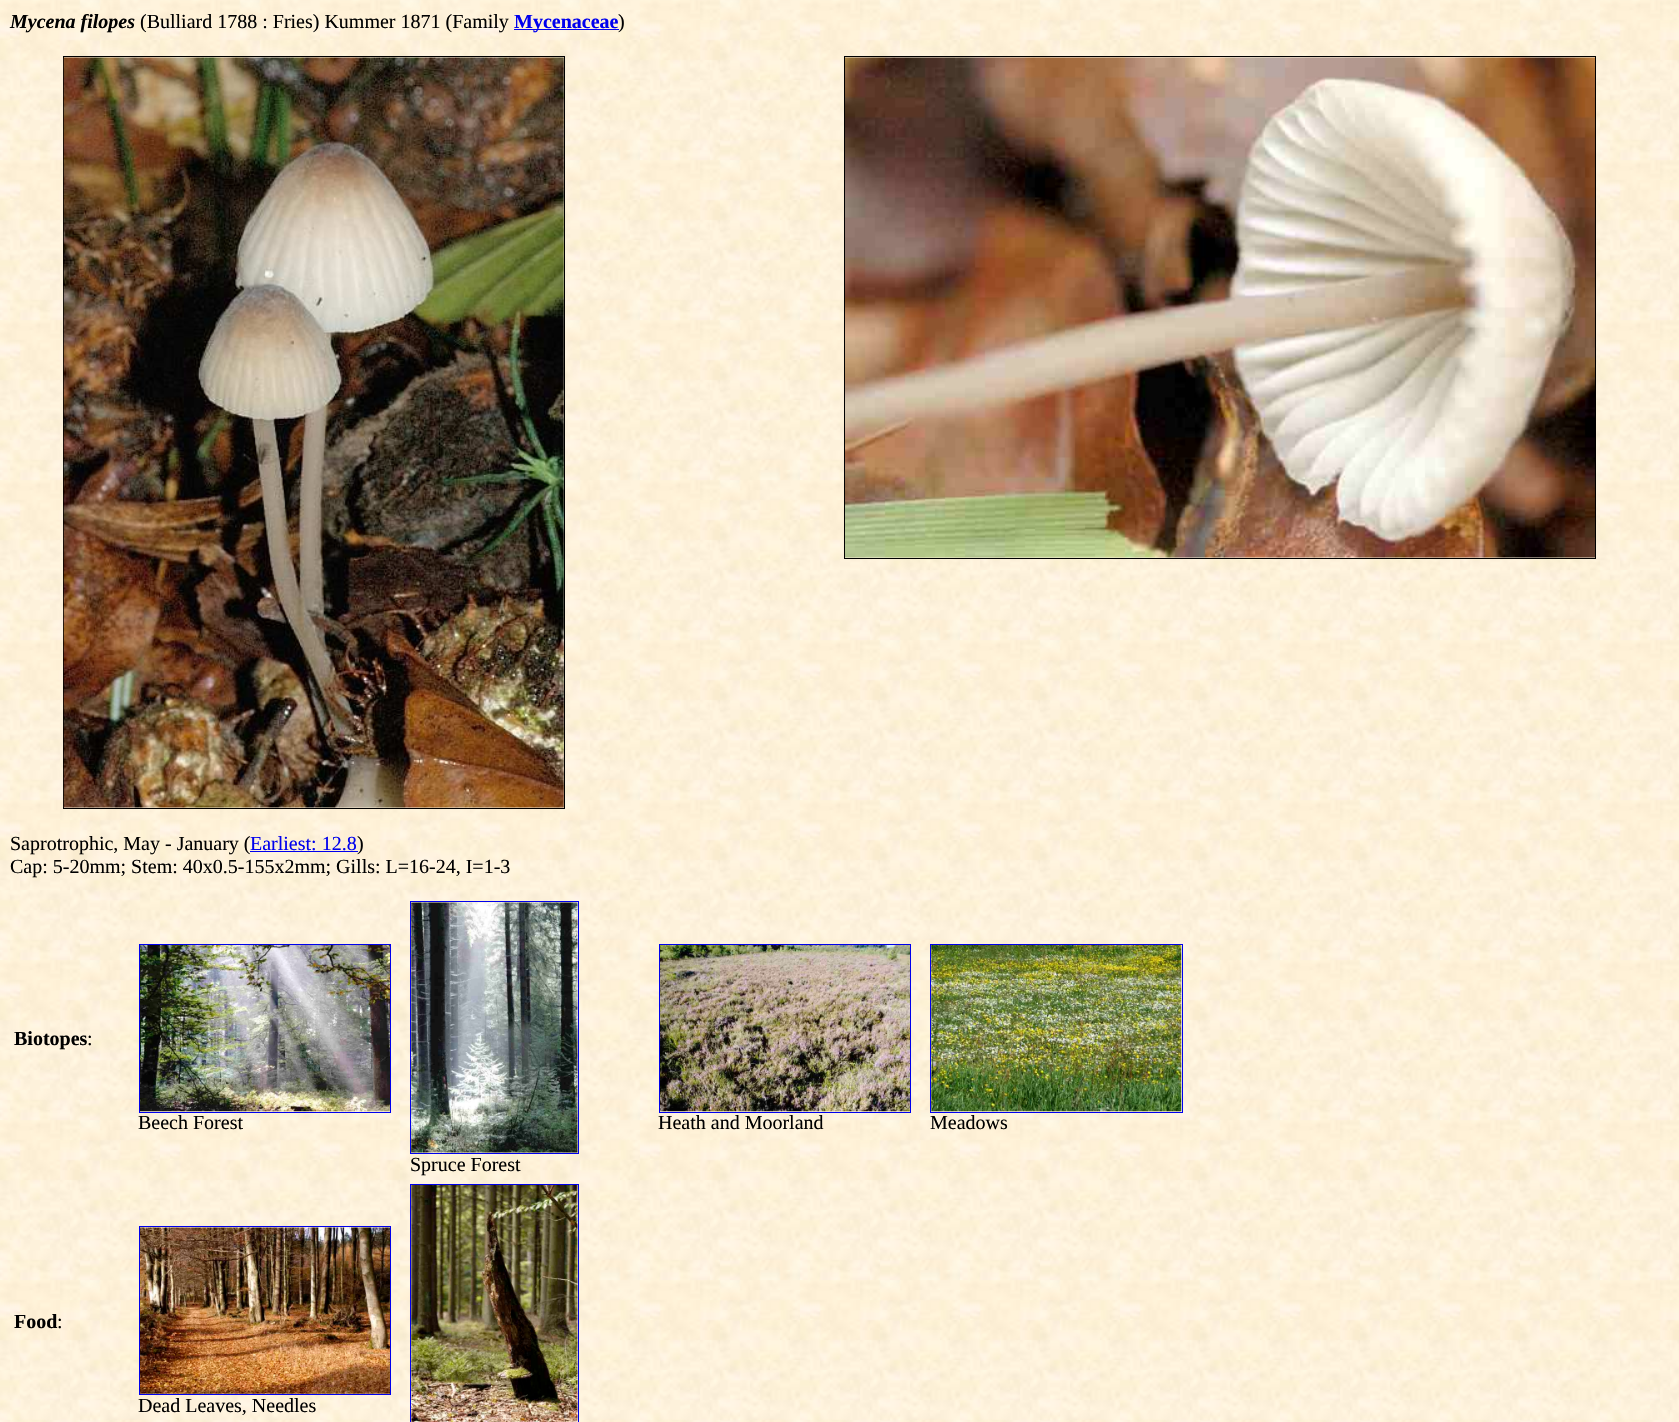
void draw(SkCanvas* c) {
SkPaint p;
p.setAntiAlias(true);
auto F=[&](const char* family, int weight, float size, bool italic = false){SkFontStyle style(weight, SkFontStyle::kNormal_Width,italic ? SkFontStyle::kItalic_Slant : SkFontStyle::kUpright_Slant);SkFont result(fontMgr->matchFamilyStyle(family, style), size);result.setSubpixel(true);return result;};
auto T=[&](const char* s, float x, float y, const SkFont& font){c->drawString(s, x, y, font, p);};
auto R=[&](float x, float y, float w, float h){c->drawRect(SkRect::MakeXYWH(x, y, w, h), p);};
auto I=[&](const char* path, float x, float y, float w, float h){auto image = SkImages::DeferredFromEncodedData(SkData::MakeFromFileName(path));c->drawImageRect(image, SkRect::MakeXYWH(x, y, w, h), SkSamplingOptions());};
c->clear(0xffffffff);
I("1.png",0,0,1679,1422);
auto f1 = F("Liberation Serif",700,20,true);
p.setColor(0xff000000);
T("Mycena filopes",10,28,f1);
auto f2 = F("Liberation Serif",400,20);
T("(Bulliard 1788 : Fries) Kummer 1871 (Family",140,28,f2);
p.setColor(0xff0000ee);
R(514,29,105,1);
auto f3 = F("Liberation Serif",700,20);
T("Mycenaceae",514,28,f3);
p.setColor(0xff000000);
T(")",618,28,f2);
p.setStroke(true);
p.setStrokeWidth(1);
c->drawRect(SkRect::MakeXYWH(63.5,56.5,501,752),p);
I("2.png",63,57,501,751);
c->drawRect(SkRect::MakeXYWH(844.5,56.5,751,502),p);
I("3.png",845,57,750,501);
p.setStroke(false);
T("Saprotrophic, May - January (",10,850,f2);
p.setColor(0xff0000ee);
T("Earliest: 12.8",250,850,f2);
R(250,851,108,1);
p.setColor(0xff000000);
T(")",357,850,f2);
T("Cap: 5-20mm; Stem: 40x0.5-155x2mm; Gills: L=16-24, I=1-3",10,873,f2);
T("Biotopes",14,1045,f3);
T(":",87,1045,f2);
p.setStroke(true);
p.setColor(0xff0000ee);
c->drawRect(SkRect::MakeXYWH(139.5,944.5,251,168),p);
I("4.png",140,945,250,167);
p.setStroke(false);
p.setColor(0xff000000);
T("Beech Forest",138,1129,f2);
p.setStroke(true);
p.setColor(0xff0000ee);
c->drawRect(SkRect::MakeXYWH(659.5,944.5,251,168),p);
I("5.png",660,945,250,167);
p.setStroke(false);
p.setColor(0xff000000);
T("Heath and Moorland",658,1129,f2);
p.setStroke(true);
p.setColor(0xff0000ee);
c->drawRect(SkRect::MakeXYWH(930.5,944.5,252,168),p);
I("6.png",931,945,251,167);
p.setStroke(false);
p.setColor(0xff000000);
T("Meadows",930,1129,f2);
p.setStroke(true);
p.setColor(0xff0000ee);
c->drawRect(SkRect::MakeXYWH(410.5,901.5,168,252),p);
I("7.png",411,902,167,251);
p.setStroke(false);
p.setColor(0xff000000);
T("Spruce Forest",410,1171,f2);
T("Food",14,1328,f3);
T(":",57,1328,f2);
p.setStroke(true);
p.setColor(0xff0000ee);
c->drawRect(SkRect::MakeXYWH(410.5,1184.5,168,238),p);
I("8.png",411,1185,167,237);
c->drawRect(SkRect::MakeXYWH(139.5,1226.5,251,168),p);
I("9.png",140,1227,250,167);
p.setStroke(false);
p.setColor(0xff000000);
T("Dead Leaves, Needles",138,1412,f2);
}
